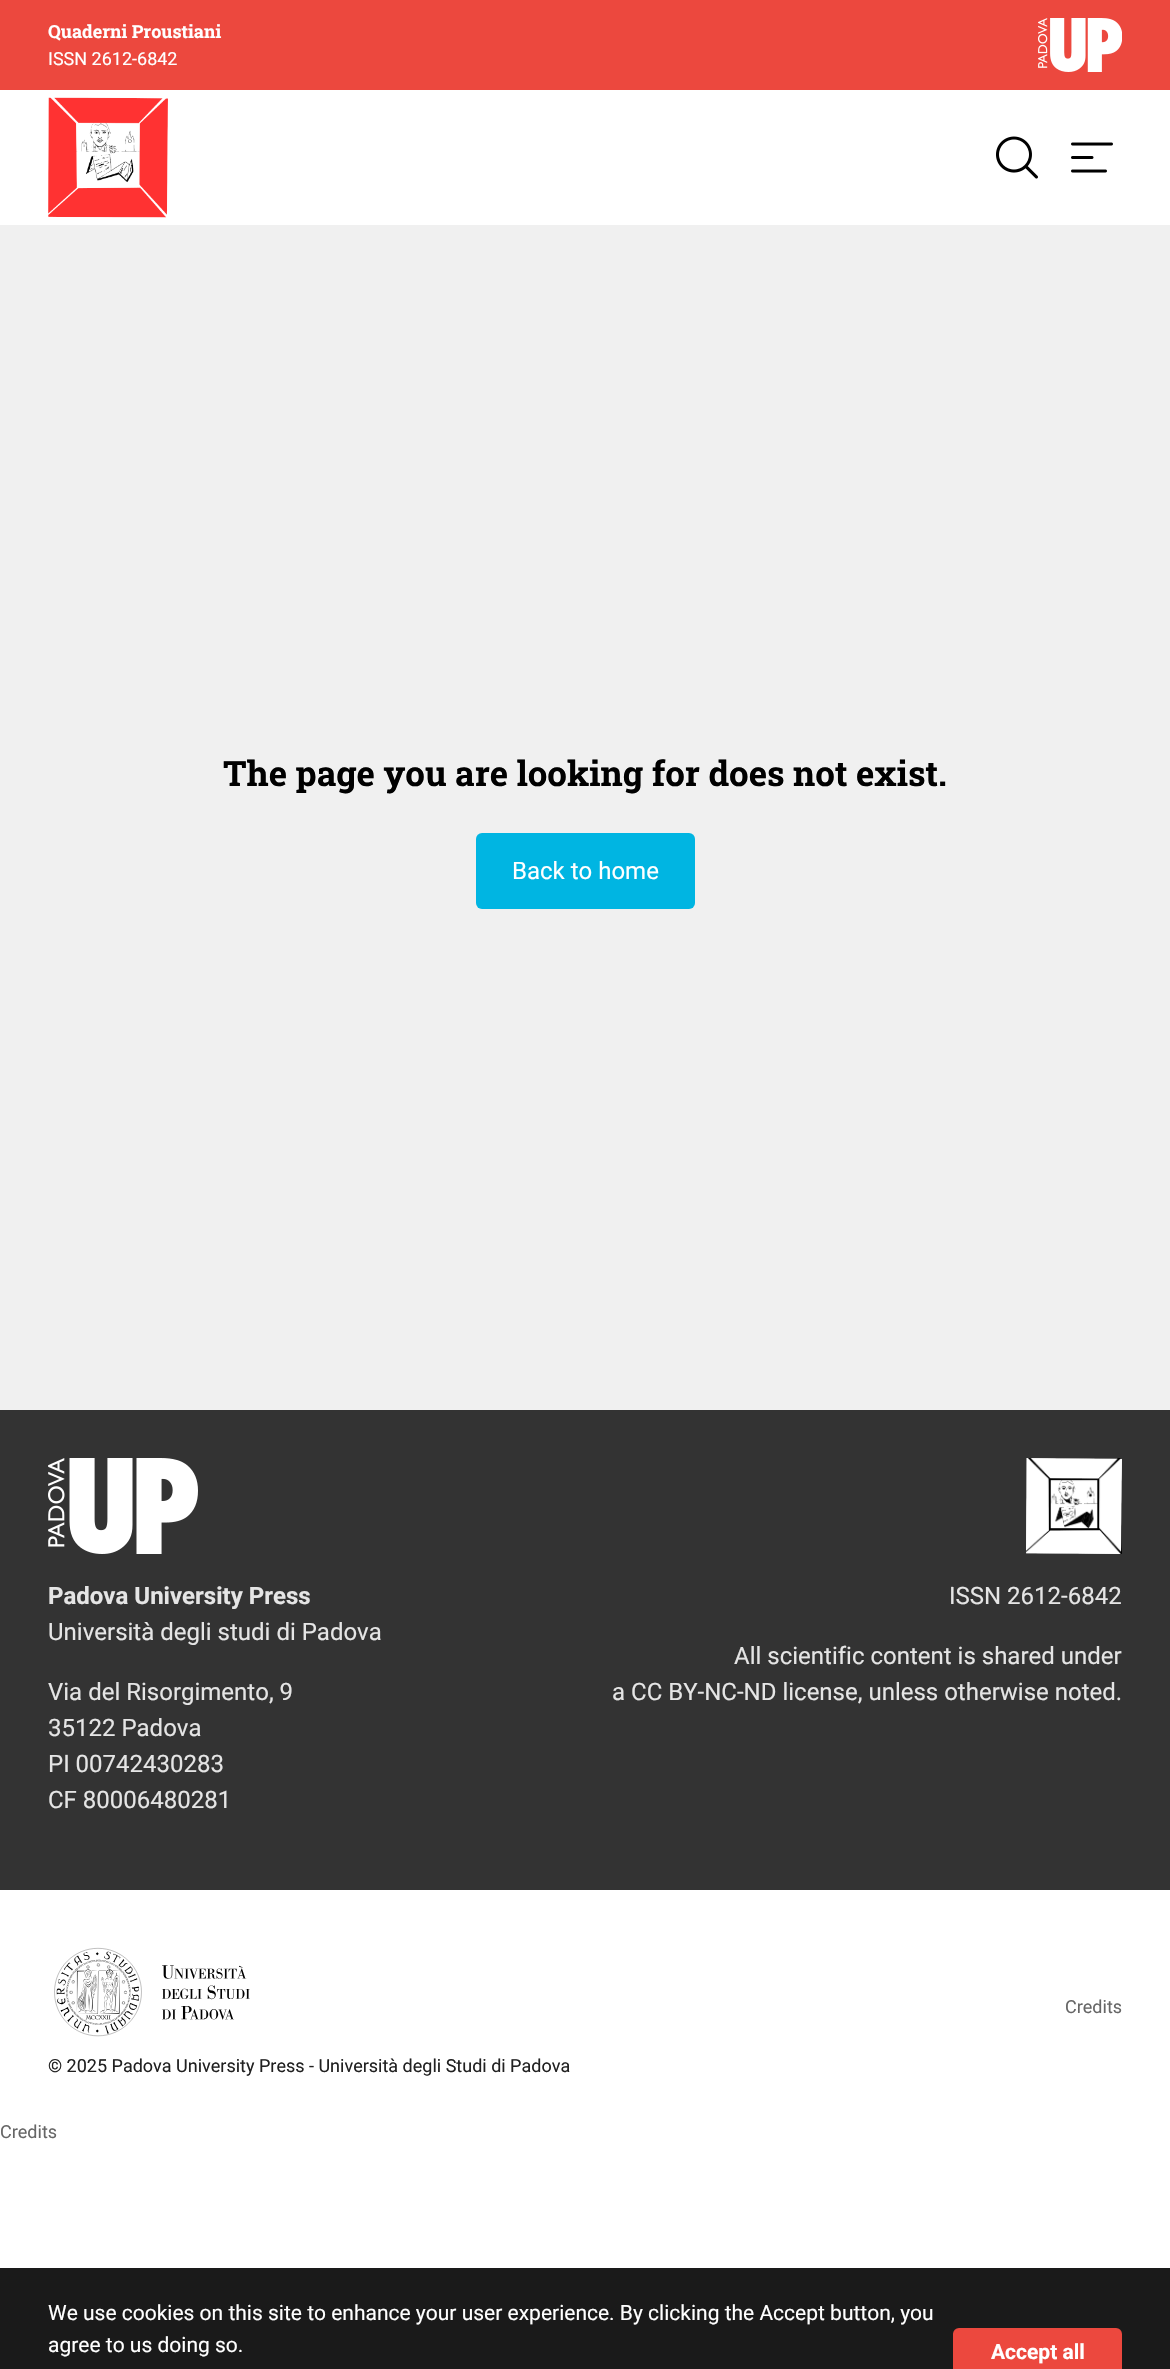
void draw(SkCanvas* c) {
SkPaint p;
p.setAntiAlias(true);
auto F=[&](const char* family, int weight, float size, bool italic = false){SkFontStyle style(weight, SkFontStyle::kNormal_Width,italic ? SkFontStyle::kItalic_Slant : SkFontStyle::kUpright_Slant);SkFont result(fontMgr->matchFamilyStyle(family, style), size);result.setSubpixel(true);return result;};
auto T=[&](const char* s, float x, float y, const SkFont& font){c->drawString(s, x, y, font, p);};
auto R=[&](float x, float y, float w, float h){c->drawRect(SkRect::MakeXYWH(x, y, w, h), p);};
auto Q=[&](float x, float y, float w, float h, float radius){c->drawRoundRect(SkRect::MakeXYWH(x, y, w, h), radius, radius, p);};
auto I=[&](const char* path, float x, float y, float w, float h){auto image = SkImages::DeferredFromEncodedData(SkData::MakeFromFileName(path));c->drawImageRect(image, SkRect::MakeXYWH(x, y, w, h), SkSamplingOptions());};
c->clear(0xffffffff);
p.setColor(0xffec483e);
R(0,0,1170,90);
auto f1 = F("Roboto Slab",700,18);
p.setColor(0xffffffff);
T("Quaderni Proustiani",48,38,f1);
auto f2 = F("Roboto",400,18);
T("ISSN 2612-6842",48,65,f2);
I("1.png",1038,18,84,54);
I("2.png",48,97,120,121);
I("3.png",996,136,42,43);
I("4.png",1071,142,42,31);
p.setColor(0xfff0f0f0);
R(0,225,1170,1185);
auto f3 = F("Roboto Slab",700,34.8);
p.setColor(0xff000000);
T("The page you are looking for does not exist.",223,786,f3);
p.setColor(0xff00b5e2);
Q(476,833,219,76,6);
auto f4 = F("Roboto",400,24);
p.setColor(0xffffffff);
T("Back to home",512,879,f4);
p.setColor(0xff333333);
R(0,1410,1170,480);
I("5.png",48,1458,150,96);
auto f5 = F("Roboto",700,24);
p.setColor(0xffe5e5e5);
T("Padova University Press",48,1604,f5);
T("Università degli studi di Padova",48,1640,f4);
T("Via del Risorgimento, 9",48,1700,f4);
T("35122 Padova",48,1736,f4);
T("PI 00742430283",48,1772,f4);
T("CF 80006480281",48,1808,f4);
I("6.png",1026,1458,96,96);
T("ISSN 2612-6842",949,1604,f4);
T("All scientific content is shared under",734,1664,f4);
T("a CC BY-NC-ND license, unless otherwise noted.",612,1700,f4);
p.setColor(0xff666666);
T("Credits",1065,2013,f2);
I("7.png",54,1947,196,90);
p.setColor(0xff212121);
T("© 2025 Padova University Press - Università degli Studi di Padova",48,2072,f2);
p.setColor(0xff666666);
T("Credits",0,2138,f2);
p.setColor(0xff1a1a1a);
R(0,2268,1170,101);
auto f6 = F("Roboto",400,21);
p.setColor(0xffffffff);
T("We use cookies on this site to enhance your user experience. By clicking the Accept button, you",48,2320,f6);
T("agree to us doing so.",48,2352,f6);
p.setColor(0xffec483e);
c->drawRoundRect(SkRect::MakeXYWH(954,2329,167,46),5,5,p);
p.setStroke(true);
p.setStrokeWidth(2);
c->drawRoundRect(SkRect::MakeXYWH(954,2329,167,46),5,5,p);
auto f7 = F("Roboto",700,21);
p.setStroke(false);
p.setColor(0xffffffff);
T("Accept all",991,2359,f7);
}
